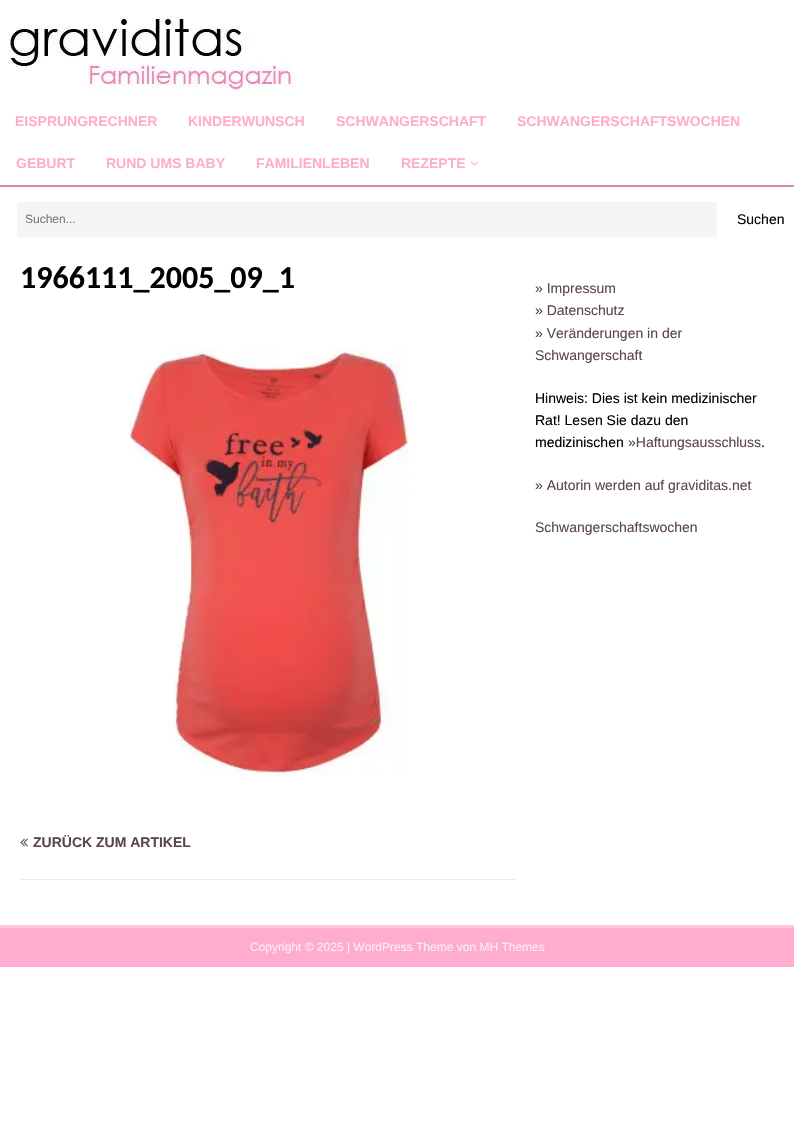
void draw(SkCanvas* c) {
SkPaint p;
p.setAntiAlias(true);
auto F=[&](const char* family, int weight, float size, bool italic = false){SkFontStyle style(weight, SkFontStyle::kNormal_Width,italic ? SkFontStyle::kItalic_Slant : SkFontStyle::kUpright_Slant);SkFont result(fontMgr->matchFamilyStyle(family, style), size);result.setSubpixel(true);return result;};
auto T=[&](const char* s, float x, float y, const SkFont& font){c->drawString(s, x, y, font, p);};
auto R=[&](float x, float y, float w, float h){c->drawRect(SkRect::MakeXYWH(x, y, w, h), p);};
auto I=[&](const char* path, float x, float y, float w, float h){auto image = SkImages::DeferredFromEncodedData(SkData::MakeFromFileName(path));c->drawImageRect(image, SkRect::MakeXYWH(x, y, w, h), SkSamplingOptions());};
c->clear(0xffffffff);
I("1.png",8,16,288,80);
p.setColor(0xffcf8da9);
R(0,185,794,2);
auto f1 = F("Liberation Sans",700,14);
p.setColor(0xffffaec9);
T("EISPRUNGRECHNER",15,126,f1);
T("KINDERWUNSCH",188,126,f1);
T("SCHWANGERSCHAFT",336,126,f1);
T("SCHWANGERSCHAFTSWOCHEN",517,126,f1);
T("GEBURT",16,168,f1);
T("RUND UMS BABY",106,168,f1);
T("FAMILIENLEBEN",256,168,f1);
T("REZEPTE",401,168,f1);
I("2.png",470,161,9,5);
p.setColor(0xfff5f5f5);
R(17,202,700,35);
auto f2 = F("Liberation Sans",400,12);
p.setColor(0xff757575);
T("Suchen...",25,223,f2);
auto f3 = F("Liberation Sans",400,14);
p.setColor(0xff000000);
T("Suchen",737,224,f3);
auto f4 = F("Carlito",700,32);
T("1966111_2005_09_1",20,288,f4);
I("3.png",129,348,286,428);
p.setColor(0xffebebeb);
R(20,879,496,1);
I("4.png",20,838,8,9);
p.setColor(0xff5b4747);
T("ZURÜCK ZUM ARTIKEL",33,847,f1);
T("» Impressum",535,293,f3);
T("» Datenschutz",535,315,f3);
T("» Veränderungen in der",535,338,f3);
T("Schwangerschaft",535,360,f3);
p.setColor(0xff000000);
T("Hinweis: Dies ist kein medizinischer",535,403,f3);
T("Rat! Lesen Sie dazu den",535,425,f3);
T("medizinischen",535,447,f3);
p.setColor(0xff5b4747);
T("»Haftungsausschluss",628,447,f3);
p.setColor(0xff000000);
T(".",761,447,f3);
p.setColor(0xff5b4747);
T("» Autorin werden auf graviditas.net",535,490,f3);
T("Schwangerschaftswochen",535,532,f3);
p.setColor(0xffffadce);
R(0,928,794,39);
p.setColor(0xffffc6dd);
R(0,925,794,3);
p.setColor(0xfff9efef);
T("Copyright © 2025 | WordPress Theme von MH Themes",250,951,f2);
}
